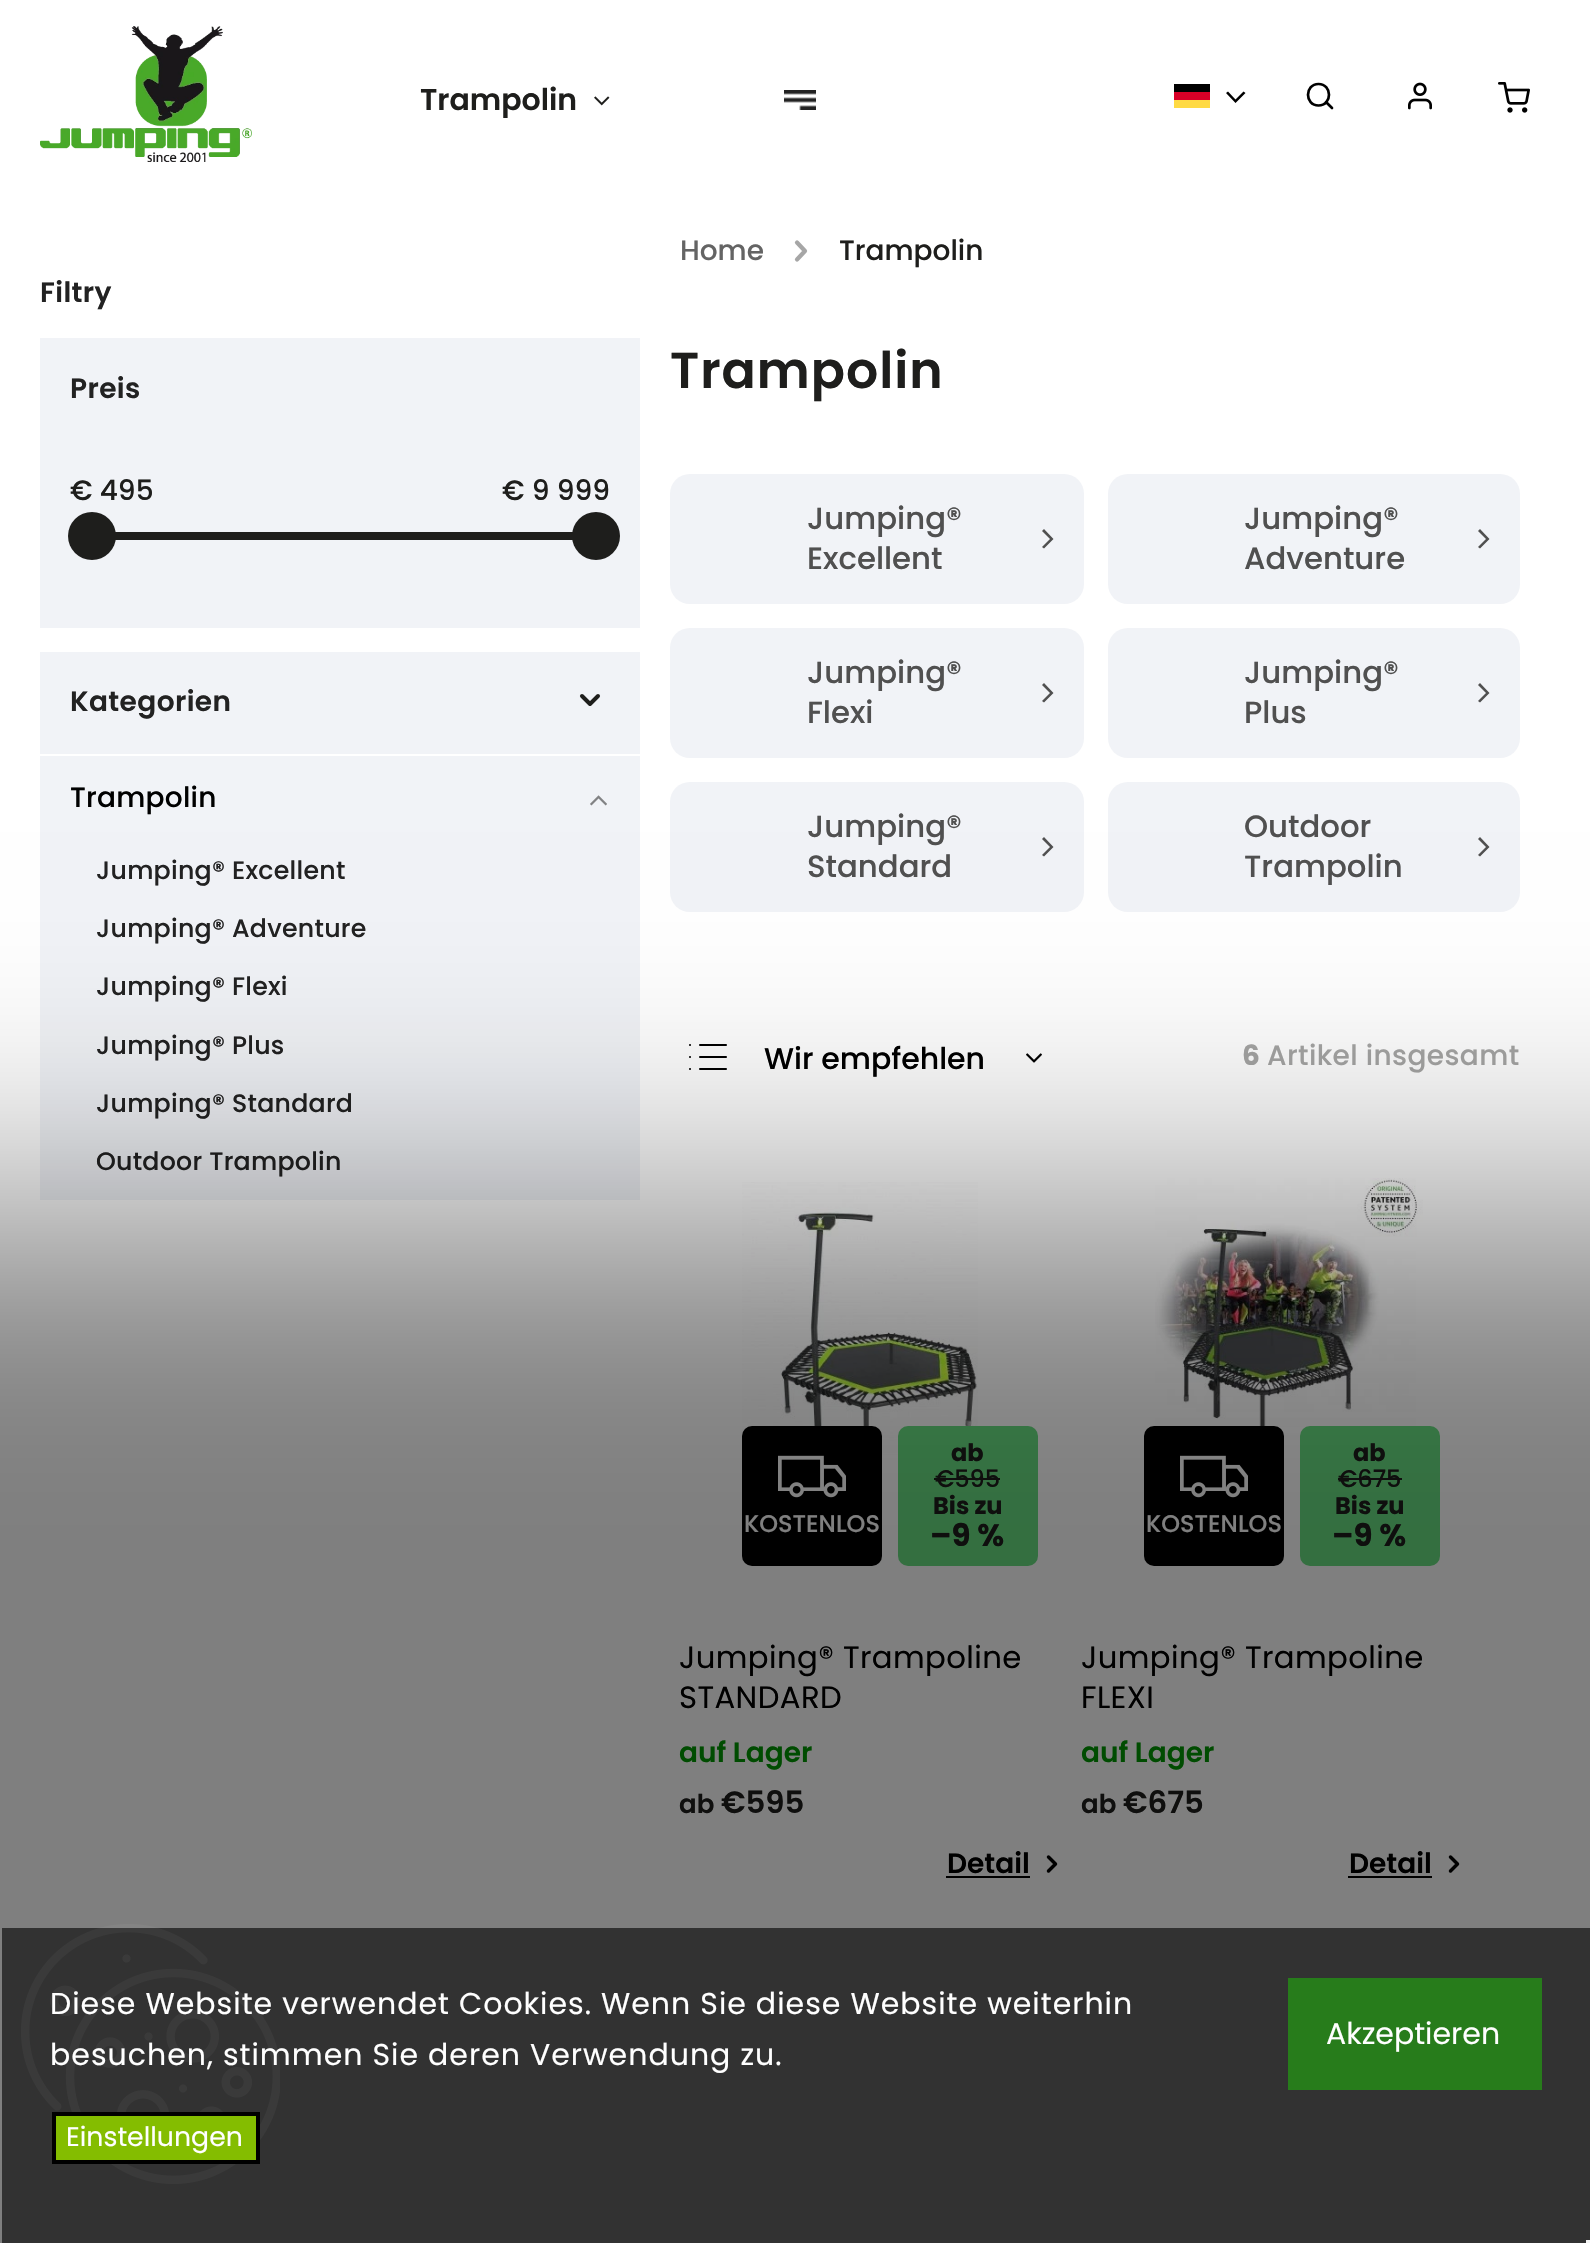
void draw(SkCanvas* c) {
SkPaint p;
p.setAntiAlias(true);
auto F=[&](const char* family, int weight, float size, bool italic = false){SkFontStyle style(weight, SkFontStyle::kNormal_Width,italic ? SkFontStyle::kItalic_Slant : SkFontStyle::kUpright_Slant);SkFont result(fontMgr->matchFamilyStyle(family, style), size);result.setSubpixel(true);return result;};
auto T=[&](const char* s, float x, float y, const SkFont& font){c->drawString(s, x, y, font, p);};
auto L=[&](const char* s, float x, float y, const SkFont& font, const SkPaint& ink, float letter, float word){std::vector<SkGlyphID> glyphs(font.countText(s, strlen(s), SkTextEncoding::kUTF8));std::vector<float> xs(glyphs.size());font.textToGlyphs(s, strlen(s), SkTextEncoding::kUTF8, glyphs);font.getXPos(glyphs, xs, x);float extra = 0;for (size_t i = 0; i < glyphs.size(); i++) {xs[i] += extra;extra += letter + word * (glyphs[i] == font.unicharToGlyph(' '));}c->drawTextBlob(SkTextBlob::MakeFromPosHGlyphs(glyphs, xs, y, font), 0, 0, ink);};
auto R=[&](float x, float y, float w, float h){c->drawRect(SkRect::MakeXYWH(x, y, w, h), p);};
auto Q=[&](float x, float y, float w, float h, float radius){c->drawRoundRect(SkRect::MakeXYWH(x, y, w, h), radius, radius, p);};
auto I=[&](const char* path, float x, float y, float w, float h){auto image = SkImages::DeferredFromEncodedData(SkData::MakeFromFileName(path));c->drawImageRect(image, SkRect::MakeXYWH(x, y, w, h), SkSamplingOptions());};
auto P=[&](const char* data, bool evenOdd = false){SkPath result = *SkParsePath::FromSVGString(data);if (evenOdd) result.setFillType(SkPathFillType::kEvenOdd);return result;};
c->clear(0xffffffff);
I("1.png",40,26,212,136);
p.setColor(0xffd80027);
R(1174,92,36,8);
p.setColor(0xff000000);
R(1174,84,36,8);
p.setColor(0xffffda44);
R(1174,100,36,8);
p.setColor(0xff000000);
c->drawPath(P("M1226 93l2-1.5l7.5 8l8-8l2 1.5l-10 10z"),p);
p.setStroke(true);
p.setStrokeWidth(2.7);
p.setStrokeCap(SkPaint::kRound_Cap);
p.setStrokeJoin(SkPaint::kRound_Join);
c->drawPath(P("M1318.5 105.5c14 0 14-21.5 0-21.5c-14 0-14 21.5 0 21.5zm13.5 2.5l-6-6"),p);
I("2.png",1408,82,24,28);
I("3.png",1498,82,32,31);
auto f1 = F("Poppins",600,30);
p.setStroke(false);
p.setColor(0xff1e1e1c);
T("Trampolin",420,110,f1);
I("4.png",594,96,16,10);
I("5.png",784,90,32,20);
auto f2 = F("Poppins",500,28);
p.setColor(0xff646464);
T("Home",680,260,f2);
p.setStroke(true);
p.setStrokeWidth(4.2);
p.setColor(0xffa6a6a6);
c->drawPath(P("M797 259.5l8-8.5l-8-8.5"),p);
p.setStroke(false);
p.setColor(0xff1e1e1c);
T("Trampolin",839,260,f2);
p.setColor(0xfff1f3f7);
R(40,338,600,290);
auto f3 = F("Poppins",600,28);
p.setColor(0xff222222);
L("Filtry",40,302,f3,p,.4,0);
L("Preis",70,398,f3,p,.4,0);
p.setColor(0xff1e1e1c);
T("€ 495",70,500,f2);
T("€ 9 999",502,500,f2);
R(115,532,458,8);
c->drawCircle(92,536,24,p);
c->drawCircle(596,536,24,p);
p.setColor(0xfff1f3f7);
R(40,652,600,548);
p.setColor(0xff222222);
L("Kategorien",70,711,f3,p,.4,0);
p.setStroke(true);
p.setStrokeWidth(4);
p.setColor(0xff1e1e1c);
c->drawPath(P("M582 696l8 8l8-8"),p);
p.setStroke(false);
p.setColor(0xffffffff);
R(40,754,600,2);
p.setColor(0xff000000);
L("Trampolin",70,807,f2,p,.25,0);
I("6.png",590,795,17,11);
auto f4 = F("Poppins",500,25.25);
p.setColor(0xff222222);
L("Jumping® Excellent",96,879,f4,p,.25,0);
L("Jumping® Adventure",96,937,f4,p,.25,0);
L("Jumping® Flexi",96,995,f4,p,.25,0);
L("Jumping® Plus",96,1054,f4,p,.25,0);
L("Jumping® Standard",96,1112,f4,p,.25,0);
L("Outdoor Trampolin",96,1170,f4,p,.25,0);
auto f5 = F("Poppins",600,50.5);
p.setColor(0xff1e1e1c);
L("Trampolin",670,388,f5,p,1,0);
p.setColor(0xfff1f3f7);
Q(670,474,414,130,20);
auto f6 = F("Poppins",500,30.75);
p.setColor(0xff505050);
T("Jumping®",807,529,f6);
T("Excellent",807,569,f6);
c->drawPath(P("M1044 548.5l-2-1.5l8-8l-8-8l2-2l9.5 10z"),p);
p.setColor(0xfff1f3f7);
Q(1108,474,412,130,20);
p.setColor(0xff505050);
T("Jumping®",1244,529,f6);
T("Adventure",1244,569,f6);
c->drawPath(P("M1480 548.5l-2-1.5l8-8l-8-8l2-2l9.5 10z"),p);
p.setColor(0xfff1f3f7);
Q(670,628,414,130,20);
p.setColor(0xff505050);
T("Jumping®",807,683,f6);
T("Flexi",807,723,f6);
c->drawPath(P("M1044 702.5l-2-1.5l8-8l-8-8l2-2l9.5 10z"),p);
p.setColor(0xfff1f3f7);
Q(1108,628,412,130,20);
p.setColor(0xff505050);
T("Jumping®",1244,683,f6);
T("Plus",1244,723,f6);
c->drawPath(P("M1480 702.5l-2-1.5l8-8l-8-8l2-2l9.5 10z"),p);
p.setColor(0xfff1f3f7);
Q(670,782,414,130,20);
p.setColor(0xff505050);
T("Jumping®",807,837,f6);
T("Standard",807,877,f6);
c->drawPath(P("M1044 856.5l-2-1.5l8-8l-8-8l2-2l9.5 10z"),p);
p.setColor(0xfff1f3f7);
Q(1108,782,412,130,20);
p.setColor(0xff505050);
T("Outdoor",1244,837,f6);
T("Trampolin",1244,877,f6);
c->drawPath(P("M1480 856.5l-2-1.5l8-8l-8-8l2-2l9.5 10z"),p);
I("7.png",689,1044,38,26);
auto f7 = F("Poppins",500,30);
p.setColor(0xff000000);
T("Wir empfehlen",764,1069,f7);
I("8.png",1026,1053,16,10);
auto f8 = F("Poppins",700,28);
p.setColor(0xffa5a5a4);
L("6",1242,1065,f8,p,.4,0);
L("Artikel insgesamt",1267,1065,f2,p,.4,0);
I("9.png",742,1182,236,273);
p.setColor(0xff000000);
Q(742,1426,140,140,10);
I("10.png",778,1455,68,43);
auto f9 = F("Poppins",500,24);
p.setColor(0xffffffff);
T("KOSTENLOS",744,1532,f9);
p.setColor(0xff68de81);
Q(898,1426,140,140,10);
auto f10 = F("Poppins",700,24);
p.setColor(0xff1e1e1c);
T("ab",951,1461,f10);
T("€595",935,1487,f9);
R(934,1478,66,2);
T("Bis zu",933,1514,f10);
auto f11 = F("Poppins",700,31);
T("–9 %",930,1546,f11);
auto f12 = F("Poppins",400,30.75);
p.setColor(0xff000000);
L("Jumping® Trampoline",679,1668,f12,p,.4,0);
L("STANDARD",679,1708,f12,p,.4,0);
p.setColor(0xff009901);
T("auf Lager",679,1762,f3);
auto f13 = F("Poppins",600,26);
p.setColor(0xff1e1e1c);
T("ab",679,1813,f13);
auto f14 = F("Poppins",600,30.75);
T("€595",721,1813,f14);
p.setColor(0xff000000);
T("Detail",947,1873,f3);
R(946,1876,84,2);
p.setStroke(true);
p.setStrokeWidth(3.5);
c->drawPath(P("M1048.5 1871l7-7l-7-7"),p);
I("11.png",1155,1178,268,262);
p.setStroke(false);
Q(1144,1426,140,140,10);
I("10.png",1180,1455,68,43);
p.setColor(0xffffffff);
T("KOSTENLOS",1146,1532,f9);
p.setColor(0xff68de81);
Q(1300,1426,140,140,10);
p.setColor(0xff1e1e1c);
T("ab",1353,1461,f10);
T("€675",1338,1487,f9);
R(1338,1478,64,2);
T("Bis zu",1335,1514,f10);
T("–9 %",1332,1546,f11);
p.setColor(0xff000000);
L("Jumping® Trampoline",1081,1668,f12,p,.4,0);
L("FLEXI",1081,1708,f12,p,.4,0);
p.setColor(0xff009901);
T("auf Lager",1081,1762,f3);
p.setColor(0xff1e1e1c);
T("ab",1081,1813,f13);
T("€675",1123,1813,f14);
p.setColor(0xff000000);
T("Detail",1349,1873,f3);
R(1348,1876,84,2);
p.setStroke(true);
c->drawPath(P("M1450.5 1871l7-7l-7-7"),p);
p.setStroke(false);
p.setColor(0x80000000);
p.setMaskFilter(SkMaskFilter::MakeBlur(kNormal_SkBlurStyle, 160));
c->drawRect(SkRect::MakeXYWH(-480,1214,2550,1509),p);
p.setMaskFilter(nullptr);
p.setColor(0xff323232);
R(2,1928,1588,315);
I("12.png",21,1924,259,260);
auto f15 = F("Poppins",400,30);
p.setColor(0xffffffff);
L("Diese Website verwendet Cookies. Wenn Sie diese Website weiterhin",50,2014,f15,p,1,0);
L("besuchen, stimmen Sie deren Verwendung zu.",50,2065,f15,p,1,0);
p.setColor(0xff84bd00);
c->drawRect(SkRect::MakeXYWH(54,2114,204,48),p);
p.setStroke(true);
p.setStrokeWidth(4);
p.setStrokeCap(SkPaint::kButt_Cap);
p.setStrokeJoin(SkPaint::kMiter_Join);
p.setColor(0xff000000);
c->drawRect(SkRect::MakeXYWH(54,2114,204,48),p);
auto f16 = F("Poppins",400,26.75);
p.setStroke(false);
p.setColor(0xffffffff);
T("Einstellungen",66,2146,f16);
p.setColor(0xff277c1b);
R(1288,1978,254,112);
p.setColor(0xffffffff);
T("Akzeptieren",1326,2044,f15);
p.setColor(0xfff5f5f5);
R(1586,2240,4,3);
}
